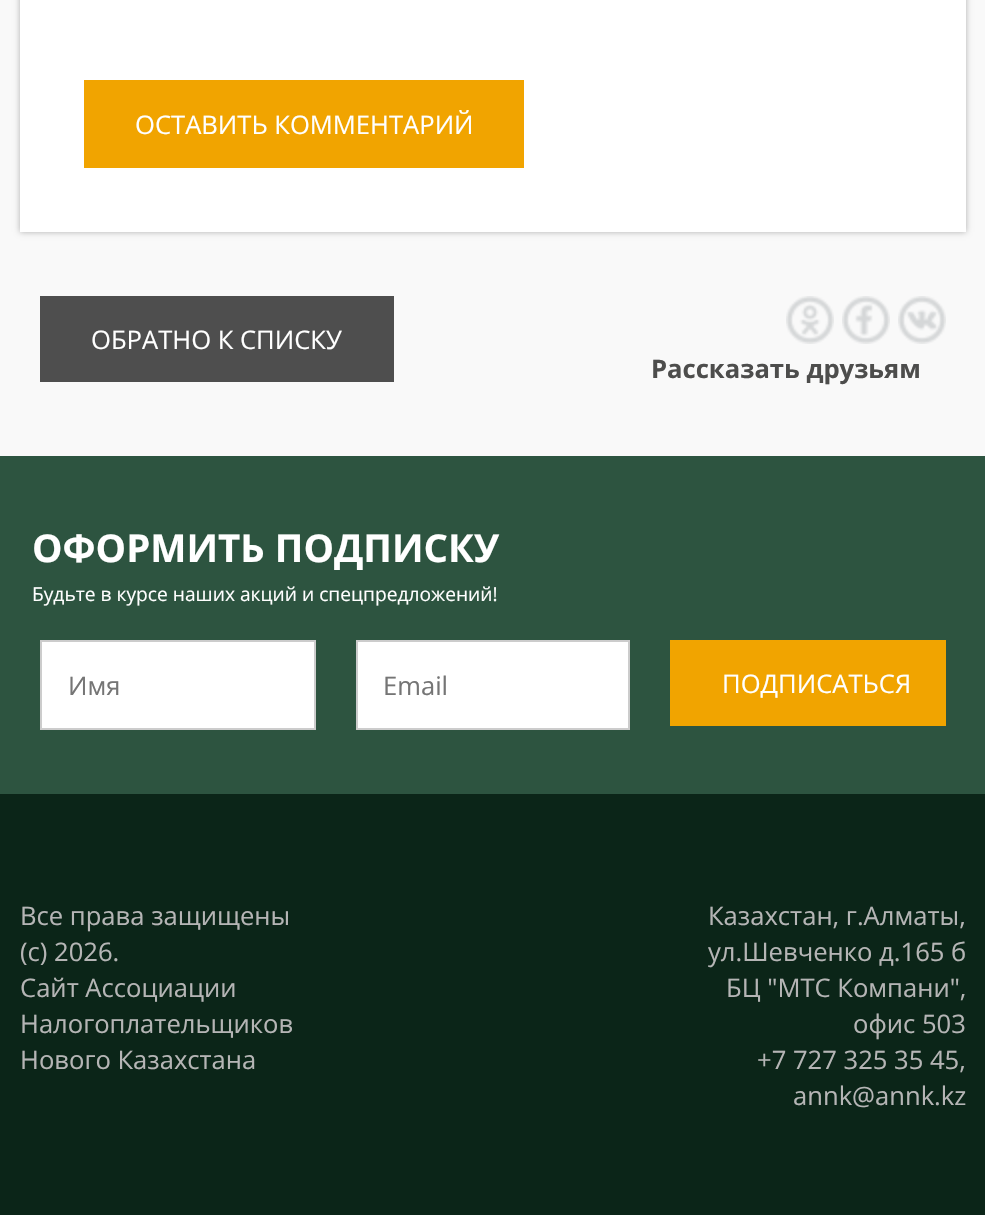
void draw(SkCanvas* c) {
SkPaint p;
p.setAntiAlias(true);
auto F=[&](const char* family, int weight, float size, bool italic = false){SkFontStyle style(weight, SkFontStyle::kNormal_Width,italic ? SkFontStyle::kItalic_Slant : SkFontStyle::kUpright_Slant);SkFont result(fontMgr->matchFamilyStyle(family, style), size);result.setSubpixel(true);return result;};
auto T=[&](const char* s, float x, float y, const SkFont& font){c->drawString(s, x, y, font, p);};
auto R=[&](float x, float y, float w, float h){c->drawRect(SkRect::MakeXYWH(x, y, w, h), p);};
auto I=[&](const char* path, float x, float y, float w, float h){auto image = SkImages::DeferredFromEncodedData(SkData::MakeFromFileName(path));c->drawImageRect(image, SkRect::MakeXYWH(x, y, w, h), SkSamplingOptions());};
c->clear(0xfff9f9f9);
p.setColor(0x4d000000);
p.setMaskFilter(SkMaskFilter::MakeBlur(kNormal_SkBlurStyle, 3));
c->drawRect(SkRect::MakeXYWH(20,-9,946,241),p);
p.setMaskFilter(nullptr);
p.setColor(0xffffffff);
R(20,0,946,232);
p.setColor(0xfff1a400);
R(84,80,440,88);
auto f1 = F("Open Sans",400,25.6);
p.setColor(0xffffffff);
T("ОСТАВИТЬ КОММЕНТАРИЙ",135,134,f1);
p.setColor(0xff4e4e4e);
R(40,296,354,86);
p.setColor(0xffffffff);
T("ОБРАТНО К СПИСКУ",91,349,f1);
I("1.png",786,296,48,48);
I("2.png",842,296,48,48);
I("3.png",898,296,48,48);
auto f2 = F("Open Sans",700,25.6);
p.setColor(0xff4d4d4c);
T("Рассказать друзьям",651,378,f2);
p.setColor(0xff2d5440);
R(0,456,985,338);
auto f3 = F("Open Sans",700,38.4);
p.setColor(0xffffffff);
T("ОФОРМИТЬ ПОДПИСКУ",32,562,f3);
auto f4 = F("Open Sans",400,19.2);
T("Будьте в курсе наших акций и спецпредложений!",32,601,f4);
c->drawRect(SkRect::MakeXYWH(41,641,274,88),p);
p.setStroke(true);
p.setStrokeWidth(2);
p.setColor(0xffcccccc);
c->drawRect(SkRect::MakeXYWH(41,641,274,88),p);
p.setStroke(false);
p.setColor(0xff757575);
T("Имя",68,695,f1);
p.setColor(0xffffffff);
c->drawRect(SkRect::MakeXYWH(357,641,272,88),p);
p.setStroke(true);
p.setColor(0xffcccccc);
c->drawRect(SkRect::MakeXYWH(357,641,272,88),p);
p.setStroke(false);
p.setColor(0xff757575);
T("Email",383,695,f1);
p.setColor(0xfff1a400);
R(670,640,276,86);
p.setColor(0xffffffff);
T("ПОДПИСАТЬСЯ",722,693,f1);
p.setColor(0xff0b2518);
R(0,794,985,421);
p.setColor(0xffb5b5b5);
T("Все права защищены",20,925,f1);
T("(с) 2026.",20,961,f1);
T("Сайт Ассоциации",20,997,f1);
T("Налогоплательщиков",20,1033,f1);
T("Нового Казахстана",20,1069,f1);
T("Казахстан, г.Алматы,",708,925,f1);
T("ул.Шевченко д.165 б",708,961,f1);
T("БЦ \"МТС Компани\",",726,997,f1);
T("офис 503",853,1033,f1);
T("+7 727 325 35 45,",757,1069,f1);
T("annk@annk.kz",793,1105,f1);
}
